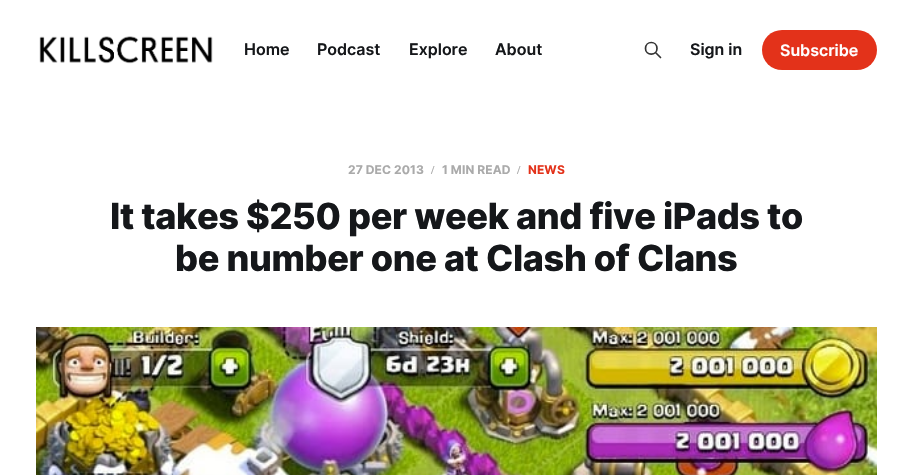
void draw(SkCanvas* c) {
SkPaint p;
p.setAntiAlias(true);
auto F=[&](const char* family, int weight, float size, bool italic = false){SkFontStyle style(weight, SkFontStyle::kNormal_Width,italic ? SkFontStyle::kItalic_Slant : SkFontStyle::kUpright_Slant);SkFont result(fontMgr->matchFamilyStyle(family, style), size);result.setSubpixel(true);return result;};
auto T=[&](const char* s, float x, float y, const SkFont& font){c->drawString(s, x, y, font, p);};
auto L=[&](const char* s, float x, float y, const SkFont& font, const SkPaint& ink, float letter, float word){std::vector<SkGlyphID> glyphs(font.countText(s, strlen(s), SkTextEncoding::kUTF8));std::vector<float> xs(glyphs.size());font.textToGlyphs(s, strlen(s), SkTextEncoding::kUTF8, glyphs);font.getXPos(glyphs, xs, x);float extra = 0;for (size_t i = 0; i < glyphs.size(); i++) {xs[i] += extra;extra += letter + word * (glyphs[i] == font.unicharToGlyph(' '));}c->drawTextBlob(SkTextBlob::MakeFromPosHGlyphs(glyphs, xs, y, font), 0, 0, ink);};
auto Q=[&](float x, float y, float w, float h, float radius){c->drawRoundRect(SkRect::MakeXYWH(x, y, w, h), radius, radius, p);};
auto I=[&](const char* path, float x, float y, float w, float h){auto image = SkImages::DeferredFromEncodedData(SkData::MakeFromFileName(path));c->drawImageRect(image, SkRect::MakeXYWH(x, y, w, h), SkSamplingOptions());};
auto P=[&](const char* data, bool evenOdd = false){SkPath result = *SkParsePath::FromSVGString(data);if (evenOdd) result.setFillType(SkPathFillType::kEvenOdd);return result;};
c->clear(0xffffffff);
I("1.png",39,36,174,28);
auto f1 = F("Inter",600,16);
p.setColor(0xff15171a);
T("Home",244,55,f1);
T("Podcast",317,55,f1);
T("Explore",409,55,f1);
T("About",495,55,f1);
p.setStroke(true);
p.setStrokeWidth(1.7);
p.setStrokeCap(SkPaint::kRound_Cap);
p.setStrokeJoin(SkPaint::kRound_Join);
p.setColor(0xff333333);
c->drawPath(P("M660.5 57.5l-5-5m1.5-4c0 7.5-11.5 7.5-11.5 0c0-8 11.5-8 11.5 0z"),p);
p.setStroke(false);
p.setColor(0xff15171a);
T("Sign in",690,55,f1);
p.setColor(0xffe3321a);
Q(762,30,115,40,20);
p.setColor(0xffffffff);
T("Subscribe",780,56,f1);
auto f2 = F("Inter",700,12);
p.setColor(0xffaaaaaa);
L("27 DEC 2013",348,174,f2,p,.1,0);
auto f3 = F("Liberation Serif",700,12);
L("/",431,174,f3,p,.1,0);
L("1 MIN READ",442,174,f2,p,.1,0);
L("/",517,174,f3,p,.1,0);
p.setColor(0xffe3321a);
L("NEWS",528,174,f2,p,.1,0);
auto f4 = F("Inter",800,36);
p.setColor(0xff15171a);
L("It takes $250 per week and five iPads to",110,229,f4,p,-.35,0);
L("be number one at Clash of Clans",175,271,f4,p,-.35,0);
I("2.png",36,327,841,148);
}
